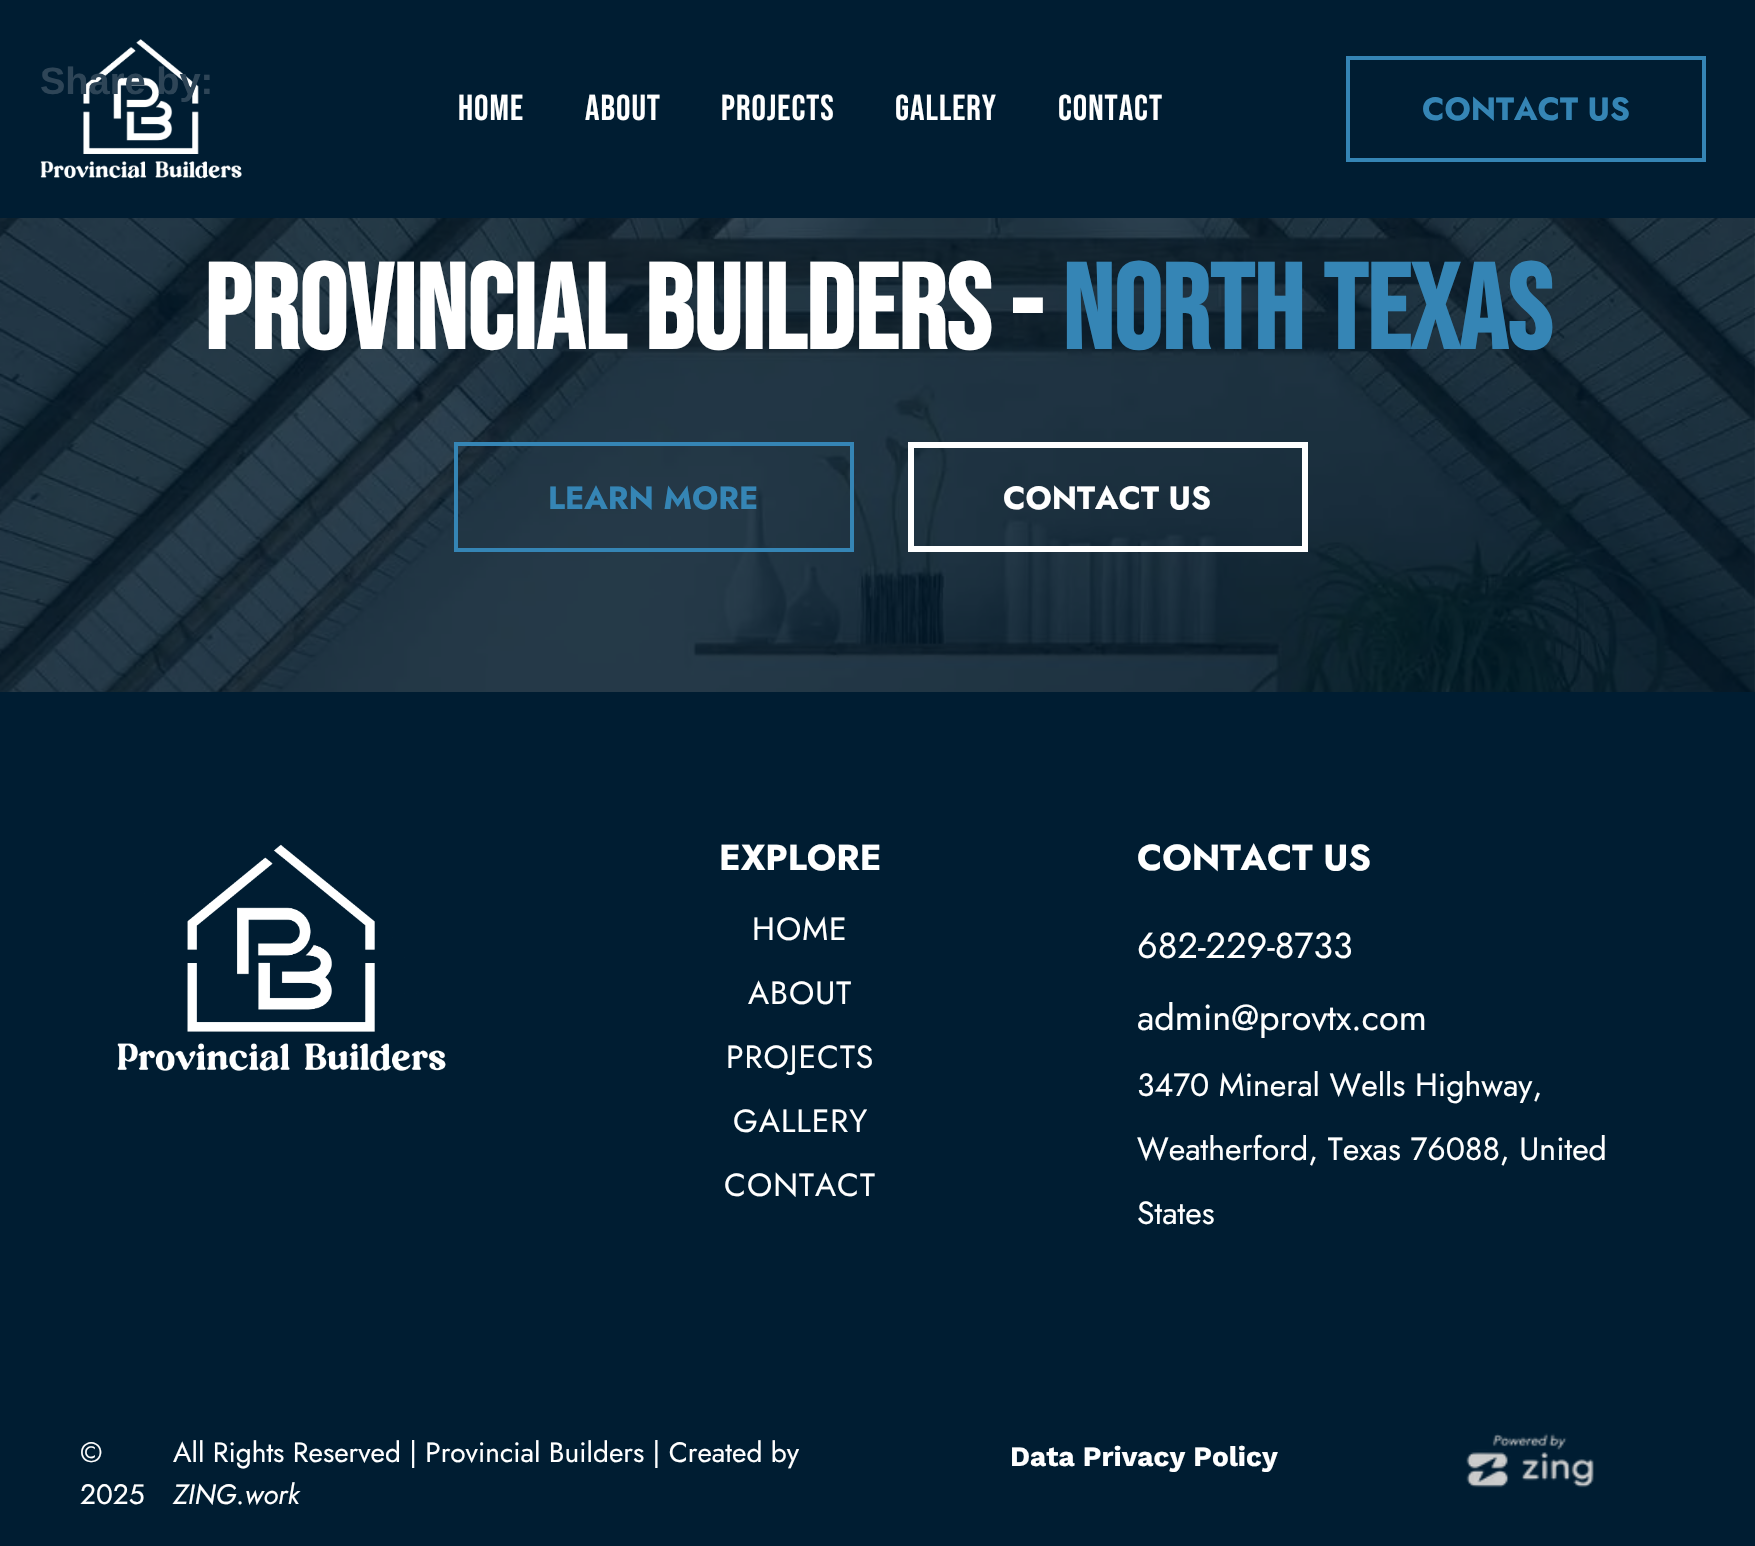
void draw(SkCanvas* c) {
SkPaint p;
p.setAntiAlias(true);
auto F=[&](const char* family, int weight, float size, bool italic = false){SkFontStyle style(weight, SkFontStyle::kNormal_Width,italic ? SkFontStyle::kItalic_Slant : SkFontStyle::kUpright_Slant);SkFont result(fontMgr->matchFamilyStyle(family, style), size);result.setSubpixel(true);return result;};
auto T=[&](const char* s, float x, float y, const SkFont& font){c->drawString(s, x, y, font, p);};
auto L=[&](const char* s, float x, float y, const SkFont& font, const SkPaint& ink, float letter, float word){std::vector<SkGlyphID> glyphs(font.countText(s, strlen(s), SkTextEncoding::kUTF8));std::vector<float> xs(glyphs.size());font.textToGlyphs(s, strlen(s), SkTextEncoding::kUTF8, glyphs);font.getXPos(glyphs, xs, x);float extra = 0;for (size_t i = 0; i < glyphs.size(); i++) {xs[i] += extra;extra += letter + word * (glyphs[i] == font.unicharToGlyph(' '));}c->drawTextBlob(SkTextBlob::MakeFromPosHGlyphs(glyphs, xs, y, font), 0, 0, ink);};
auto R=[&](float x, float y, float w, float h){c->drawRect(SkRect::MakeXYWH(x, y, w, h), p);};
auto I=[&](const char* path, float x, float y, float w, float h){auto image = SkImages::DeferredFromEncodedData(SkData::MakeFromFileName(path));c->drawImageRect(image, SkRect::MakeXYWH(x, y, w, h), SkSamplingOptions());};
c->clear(0xffffffff);
p.setColor(0xff001d32);
R(0,0,1755,218);
I("1.png",40,39,202,140);
auto f1 = F("Liberation Sans",700,38);
p.setColor(0xff2e4557);
T("Share by:",40,94,f1);
auto f2 = F("Bebas Neue",400,36);
p.setColor(0xffffffff);
L("HOME",458,120,f2,p,1,0);
L("ABOUT",585,120,f2,p,1,0);
L("PROJECTS",721,120,f2,p,1,0);
L("Gallery",895,120,f2,p,1,0);
L("CONTACT",1058,120,f2,p,1,0);
p.setStroke(true);
p.setStrokeWidth(4);
p.setColor(0xff3585b5);
c->drawRect(SkRect::MakeXYWH(1348,58,356,102),p);
auto f3 = F("Jost",700,32);
p.setStroke(false);
T("CONTACT US",1422,120,f3);
I("2.png",0,218,1755,474);
auto f4 = F("Bebas Neue",700,120);
p.setColor(0xffffffff);
T("Provincial Builders -",204,349,f4);
p.setColor(0xff3585b5);
T("North Texas",1062,349,f4);
p.setStroke(true);
c->drawRect(SkRect::MakeXYWH(456,444,396,106),p);
p.setStroke(false);
T("LEARN MORE",548,509,f3);
p.setStroke(true);
p.setStrokeWidth(6);
p.setColor(0xffffffff);
c->drawRect(SkRect::MakeXYWH(911,445,394,104),p);
p.setStroke(false);
T("CONTACT US",1003,509,f3);
p.setColor(0xff001d32);
R(0,692,1755,854);
I("3.png",117,844,329,227);
auto f5 = F("Jost",700,36);
p.setColor(0xffffffff);
T("EXPLORE",719,870,f5);
auto f6 = F("Jost",400,32);
L("HOME",752,940,f6,p,1,0);
L("ABOUT",748,1004,f6,p,1,0);
L("PROJECTS",726,1068,f6,p,1,0);
L("GALLERY",733,1132,f6,p,1,0);
L("CONTACT",724,1196,f6,p,1,0);
T("CONTACT US",1137,870,f5);
auto f7 = F("Jost",400,36);
T("682-229-8733",1137,958,f7);
T("admin@provtx.com",1137,1030,f7);
T("3470 Mineral Wells Highway,",1137,1096,f6);
T("Weatherford, Texas 76088, United",1137,1160,f6);
T("States",1137,1224,f6);
auto f8 = F("Jost",400,28);
T("©",80,1462,f8);
T("2025",80,1504,f8);
T("All Rights Reserved | Provincial Builders | Created by",173,1462,f8);
auto f9 = F("Jost",400,28,true);
T("ZING.work",173,1504,f9);
auto f10 = F("Work Sans",700,28);
T("Data Privacy Policy",1010,1466,f10);
I("4.png",1466,1433,128,55);
}
